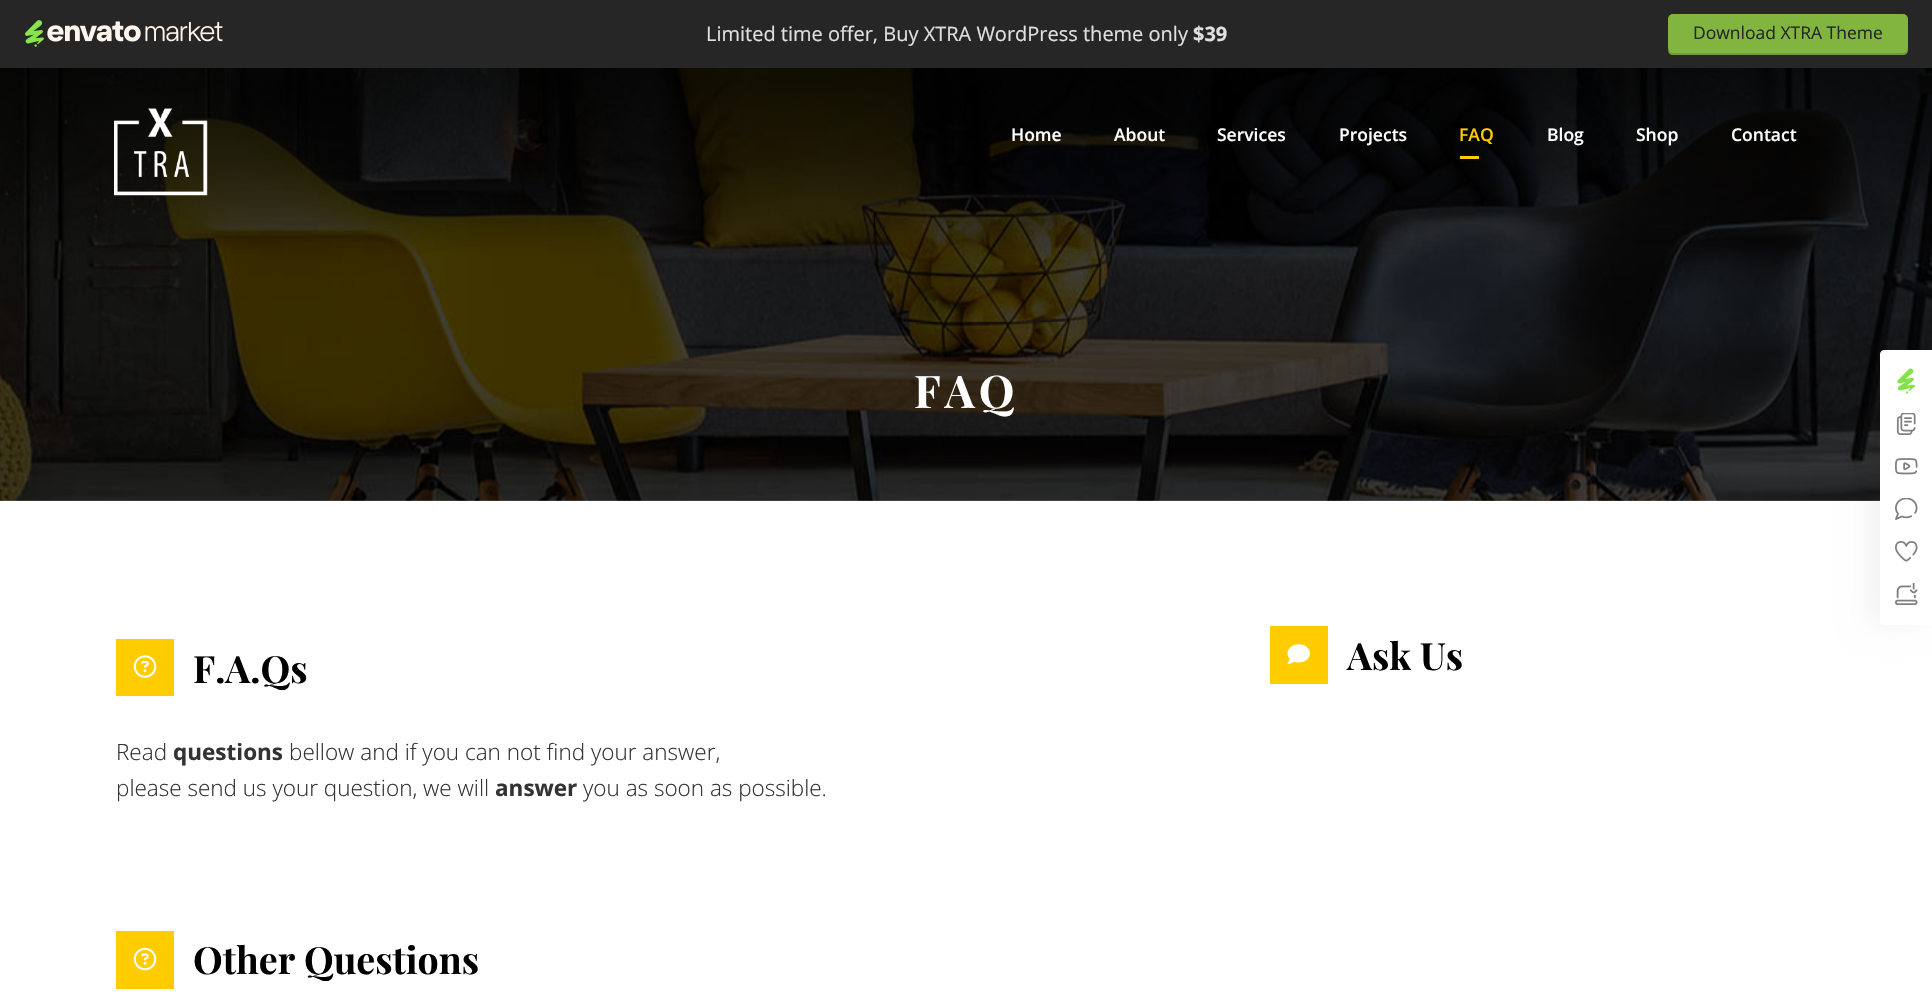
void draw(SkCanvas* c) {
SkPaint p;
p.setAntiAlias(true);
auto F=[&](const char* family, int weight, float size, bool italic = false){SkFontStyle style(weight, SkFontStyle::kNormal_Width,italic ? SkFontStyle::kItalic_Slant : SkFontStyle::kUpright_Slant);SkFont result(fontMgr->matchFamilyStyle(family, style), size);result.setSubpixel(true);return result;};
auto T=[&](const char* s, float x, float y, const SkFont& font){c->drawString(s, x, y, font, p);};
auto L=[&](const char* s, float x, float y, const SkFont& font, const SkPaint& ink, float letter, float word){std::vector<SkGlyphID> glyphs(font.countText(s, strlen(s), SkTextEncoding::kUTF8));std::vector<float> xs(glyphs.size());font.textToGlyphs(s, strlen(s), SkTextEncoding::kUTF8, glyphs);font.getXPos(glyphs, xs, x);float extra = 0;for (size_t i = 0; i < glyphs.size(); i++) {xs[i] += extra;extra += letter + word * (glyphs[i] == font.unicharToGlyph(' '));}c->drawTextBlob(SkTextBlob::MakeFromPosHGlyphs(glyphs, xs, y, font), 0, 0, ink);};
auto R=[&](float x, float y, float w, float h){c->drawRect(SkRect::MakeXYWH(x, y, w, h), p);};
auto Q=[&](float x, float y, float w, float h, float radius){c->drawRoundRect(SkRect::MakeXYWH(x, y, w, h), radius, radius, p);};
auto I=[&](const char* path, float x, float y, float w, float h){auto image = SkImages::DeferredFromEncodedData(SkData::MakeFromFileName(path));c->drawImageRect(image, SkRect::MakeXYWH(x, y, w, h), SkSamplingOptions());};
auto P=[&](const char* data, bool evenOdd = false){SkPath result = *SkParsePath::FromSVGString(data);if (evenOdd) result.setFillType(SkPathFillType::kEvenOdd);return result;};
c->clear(0xffffffff);
p.setColor(0xff262626);
R(0,0,1932,68);
I("1.png",25,20,198,27);
auto f1 = F("Open Sans",400,20);
p.setColor(0xffe0e0e0);
T("Limited time offer, Buy XTRA WordPress theme only",706,41,f1);
auto f2 = F("Open Sans",700,20);
T("$39",1193,41,f2);
p.setColor(0xff6f9a37);
c->drawPath(P("M1668 50c0 3 2 5 5 5h230c3 0 5-2 5-5v-29v-2v29c0 2-3 4-6 4h-230c-1 0-3-1-4-2z"),p);
p.setColor(0xff82b440);
Q(1668,14,240,39,5);
auto f3 = F("Open Sans",400,17.5);
p.setColor(0xff262626);
T("Download XTRA Theme",1693,39,f3);
I("3.png",0,68,1932,433);
I("2.png",114,108,94,88);
auto f4 = F("Open Sans",600,17.5);
p.setColor(0xffffffff);
T("Home",1011,141,f4);
T("About",1114,141,f4);
T("Services",1217,141,f4);
T("Projects",1339,141,f4);
p.setColor(0xffffcc00);
T("FAQ",1459,141,f4);
R(1460,156,19,3);
p.setColor(0xffffffff);
T("Blog",1547,141,f4);
T("Shop",1636,141,f4);
T("Contact",1731,141,f4);
auto f5 = F("Playfair Display",700,45);
L("FAQ",914,408,f5,p,4,0);
p.setColor(0xffffcc00);
R(116,639,58,57);
I("4.png",133,655,24,23);
auto f6 = F("Playfair Display",700,37.5);
p.setColor(0xff000000);
T("F.A.Qs",193,683,f6);
auto f7 = F("Open Sans",300,22.5);
p.setColor(0xff333333);
T("Read",116,760,f7);
auto f8 = F("Open Sans",700,22.5);
T("questions",173,760,f8);
T("bellow and if you can not find your answer,",289,760,f7);
T("please send us your question, we will",116,796,f7);
T("answer",495,796,f8);
T("you as soon as possible.",583,796,f7);
p.setColor(0xffffcc00);
R(116,931,58,58);
I("5.png",133,947,24,24);
p.setColor(0xff000000);
T("Other Questions",193,974,f6);
p.setColor(0xffffcc00);
R(1270,626,58,58);
I("6.png",1287,644,23,20);
p.setColor(0xff000000);
T("Ask Us",1347,670,f6);
p.setColor(0x0d000000);
p.setMaskFilter(SkMaskFilter::MakeBlur(kNormal_SkBlurStyle, 15));
c->drawRoundRect(SkRect::MakeXYWH(1869,351,50,273),2.5,2.5,p);
p.setMaskFilter(nullptr);
p.setColor(0xffffffff);
c->drawPath(P("M1884 350h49v275h-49c-2 0-4-2-4-4v-267c0-2 2-4 4-4z"),p);
I("7.png",1897,368,18,26);
I("8.png",1896,413,20,22);
I("9.png",1895,458,23,17);
I("10.png",1895,498,23,22);
I("11.png",1895,541,23,21);
I("12.png",1895,583,23,22);
}
